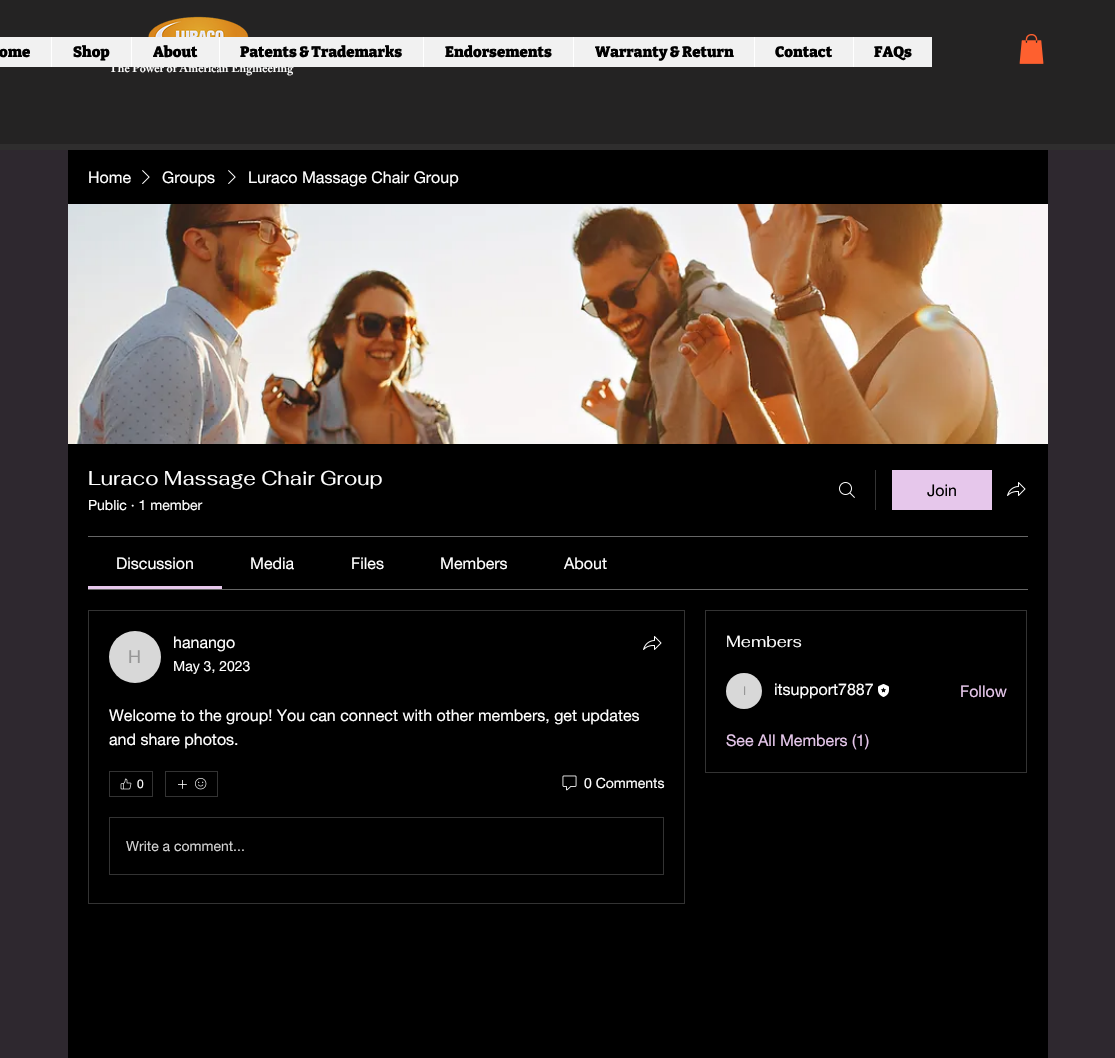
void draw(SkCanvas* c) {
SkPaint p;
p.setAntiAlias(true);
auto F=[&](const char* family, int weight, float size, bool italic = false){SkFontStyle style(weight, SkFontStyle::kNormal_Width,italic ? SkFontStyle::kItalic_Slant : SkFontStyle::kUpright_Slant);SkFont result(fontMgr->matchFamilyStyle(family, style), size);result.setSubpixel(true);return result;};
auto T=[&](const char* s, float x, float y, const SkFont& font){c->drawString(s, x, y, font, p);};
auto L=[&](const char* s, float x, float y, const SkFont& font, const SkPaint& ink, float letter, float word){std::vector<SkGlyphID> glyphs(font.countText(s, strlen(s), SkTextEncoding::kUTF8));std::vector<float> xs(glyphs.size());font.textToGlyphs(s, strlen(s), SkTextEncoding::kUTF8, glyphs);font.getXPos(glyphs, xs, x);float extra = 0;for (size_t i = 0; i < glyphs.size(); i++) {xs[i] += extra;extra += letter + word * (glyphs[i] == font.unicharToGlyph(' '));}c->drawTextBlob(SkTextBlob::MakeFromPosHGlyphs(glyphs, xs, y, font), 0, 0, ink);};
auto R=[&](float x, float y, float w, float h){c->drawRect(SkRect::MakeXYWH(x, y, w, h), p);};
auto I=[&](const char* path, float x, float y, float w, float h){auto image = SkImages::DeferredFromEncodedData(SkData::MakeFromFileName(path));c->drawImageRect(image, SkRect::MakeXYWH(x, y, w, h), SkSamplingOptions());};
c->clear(0xff2e282f);
p.setColor(0xff242323);
R(0,0,1115,144);
auto f1 = F("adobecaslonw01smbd",600,12);
p.setColor(0xffffffff);
L("The Power of American Engineering",109,72,f1,p,.1,0);
p.setColor(0xfff1f1f1);
R(0,37,932,30);
auto f2 = F("Bitter",900,15);
p.setColor(0xff000000);
T("ome",-1,57,f2);
p.setColor(0xffffffff);
R(51,37,1,30);
p.setColor(0xff000000);
T("Shop",73,57,f2);
p.setColor(0xffffffff);
R(131,37,1,30);
p.setColor(0xff000000);
T("About",153,57,f2);
p.setColor(0xffffffff);
R(219,37,1,30);
p.setColor(0xff000000);
T("Patents & Trademarks",240,57,f2);
p.setColor(0xffffffff);
R(423,37,1,30);
p.setColor(0xff000000);
T("Endorsements",445,57,f2);
p.setColor(0xffffffff);
R(573,37,1,30);
p.setColor(0xff000000);
T("Warranty & Return",595,57,f2);
p.setColor(0xffffffff);
R(754,37,1,30);
p.setColor(0xff000000);
T("Contact",775,57,f2);
p.setColor(0xffffffff);
R(853,37,1,30);
p.setColor(0xff000000);
T("FAQs",874,57,f2);
I("1.png",1019,34,25,30);
I("2.png",148,16,101,21);
p.setColor(0xff2f2e2e);
R(0,144,1115,6);
p.setColor(0xff000000);
R(68,150,980,908);
auto f3 = F("helvetica neue",400,16);
p.setColor(0xffffffff);
T("Home",88,183,f3);
I("3.png",142,170,8,14);
T("Groups",162,183,f3);
I("3.png",228,170,8,14);
T("Luraco Massage Chair Group",248,183,f3);
I("4.png",68,204,980,240);
auto f4 = F("Fahkwang",400,20);
T("Luraco Massage Chair Group",88,485,f4);
auto f5 = F("helvetica neue",400,14);
T("Public · 1 member",88,510,f5);
I("5.png",839,482,16,16);
p.setColor(0xff333333);
R(875,470,1,40);
p.setColor(0xffe6c7eb);
R(892,470,100,40);
p.setColor(0xff000000);
T("Join",927,496,f3);
I("6.png",1007,482,19,14);
p.setColor(0xff666666);
R(88,536,940,1);
R(88,589,940,1);
p.setColor(0xffe6c7eb);
R(88,586,134,3);
p.setColor(0xffffffff);
T("Discussion",116,569,f3);
T("Media",250,569,f3);
T("Files",351,569,f3);
T("Members",440,569,f3);
T("About",564,569,f3);
p.setStroke(true);
p.setStrokeWidth(1);
p.setColor(0xff333333);
c->drawRect(SkRect::MakeXYWH(88.5,610.5,596,293),p);
p.setStroke(false);
p.setColor(0xffffffff);
T("hanango",173,648,f3);
T("May 3, 2023",173,671,f5);
I("6.png",643,636,19,14);
p.setColor(0xffd8d8d8);
c->drawCircle(135,657,26,p);
auto f6 = F("helvetica neue",400,18);
p.setColor(0xff979797);
T("H",128,663,f6);
p.setColor(0xffffffff);
T("Welcome to the group! You can connect with other members, get updates",109,721,f3);
T("and share photos.",109,745,f3);
p.setStroke(true);
p.setColor(0xff333333);
c->drawRect(SkRect::MakeXYWH(109.5,771.5,43,25),p);
I("7.png",120,778,12,12);
auto f7 = F("helvetica neue",400,12);
p.setStroke(false);
p.setColor(0xffffffff);
T("0",137,788,f7);
p.setStroke(true);
p.setColor(0xff333333);
c->drawRect(SkRect::MakeXYWH(165.5,771.5,52,25),p);
I("8.png",178,780,9,9);
I("9.png",195,778,12,12);
I("10.png",562,775,15,16);
p.setStroke(false);
p.setColor(0xffffffff);
T("0 Comments",584,788,f5);
p.setStroke(true);
p.setColor(0xff333333);
c->drawRect(SkRect::MakeXYWH(109.5,817.5,554,57),p);
p.setStroke(false);
p.setColor(0xffd1d1d1);
T("Write a comment...",126,851,f5);
p.setStroke(true);
p.setColor(0xff333333);
c->drawRect(SkRect::MakeXYWH(705.5,610.5,321,162),p);
auto f8 = F("Fahkwang",400,16);
p.setStroke(false);
p.setColor(0xffffffff);
T("Members",726,647,f8);
p.setColor(0xffd8d8d8);
c->drawCircle(744,691,18,p);
p.setColor(0xff979797);
T("I",743,695,f7);
p.setColor(0xffffffff);
T("itsupport7887",774,695,f3);
I("11.png",878,684,11,13);
p.setColor(0xffe6c7eb);
T("Follow",960,697,f3);
T("See All Members (1)",726,746,f3);
}
